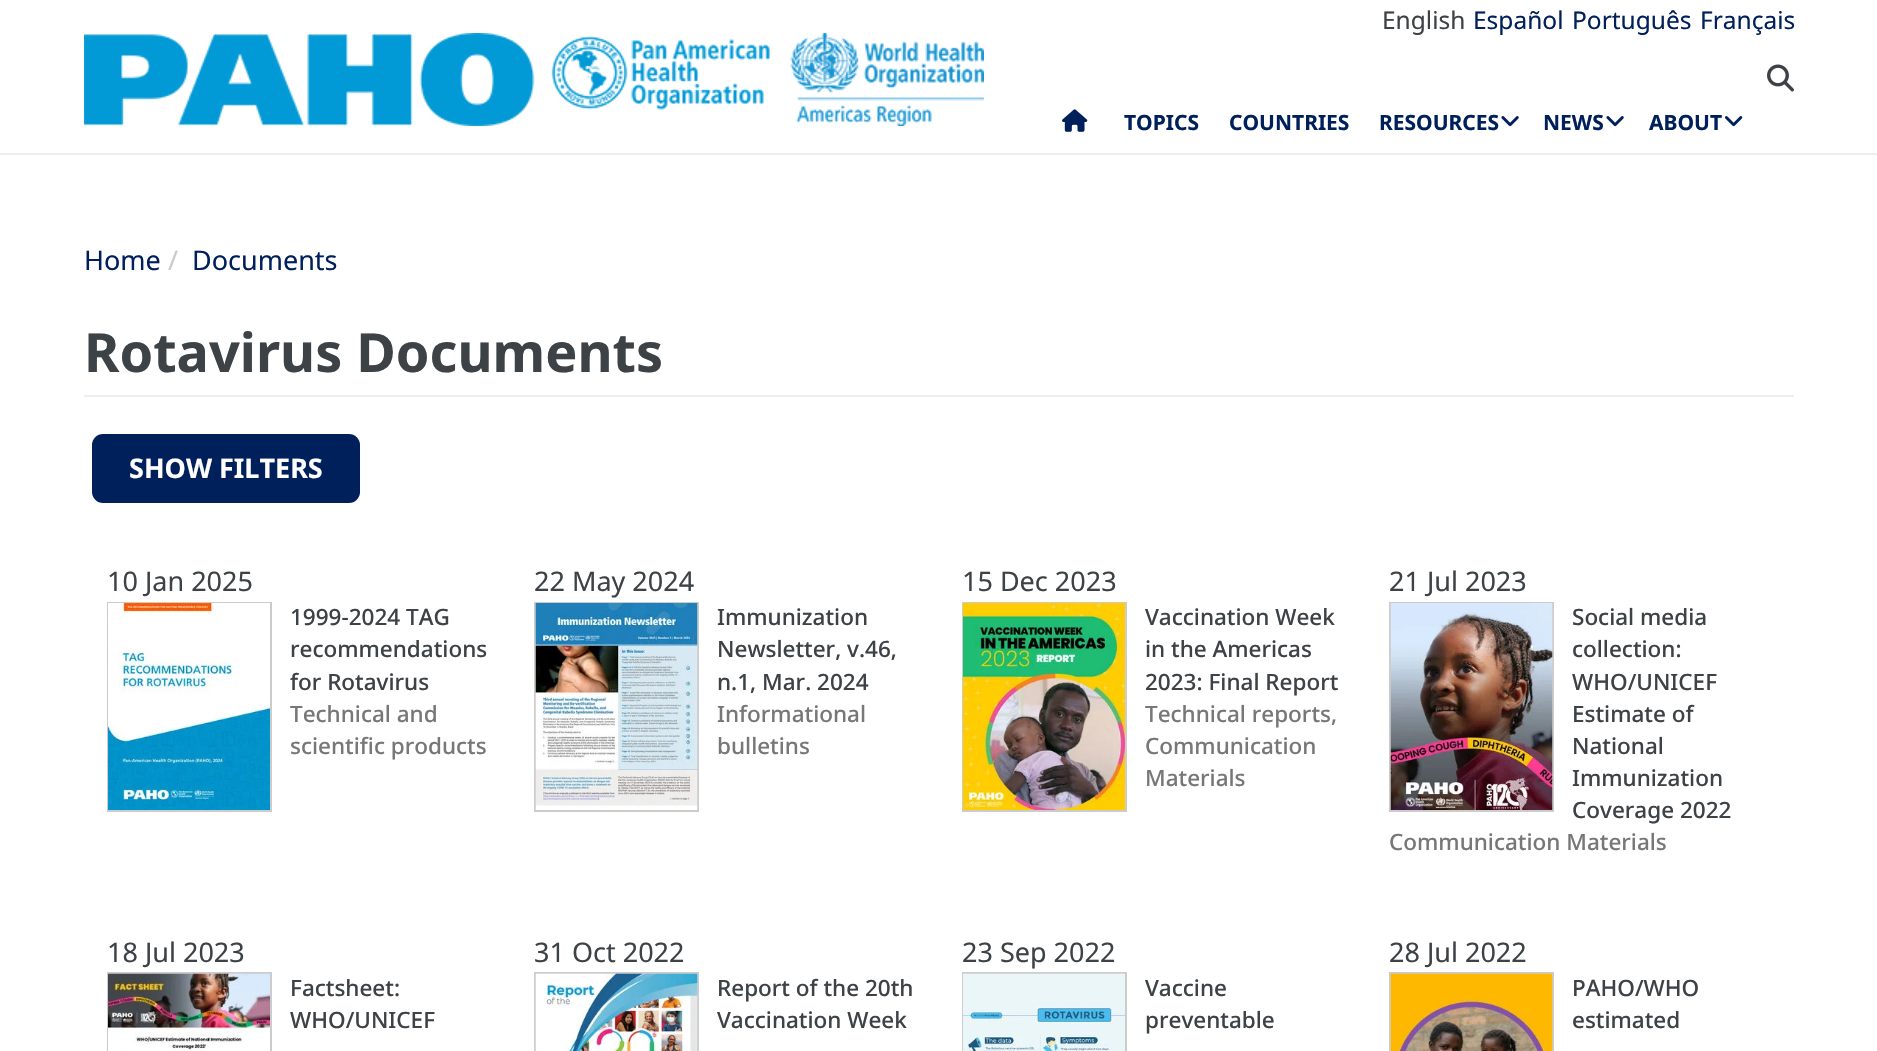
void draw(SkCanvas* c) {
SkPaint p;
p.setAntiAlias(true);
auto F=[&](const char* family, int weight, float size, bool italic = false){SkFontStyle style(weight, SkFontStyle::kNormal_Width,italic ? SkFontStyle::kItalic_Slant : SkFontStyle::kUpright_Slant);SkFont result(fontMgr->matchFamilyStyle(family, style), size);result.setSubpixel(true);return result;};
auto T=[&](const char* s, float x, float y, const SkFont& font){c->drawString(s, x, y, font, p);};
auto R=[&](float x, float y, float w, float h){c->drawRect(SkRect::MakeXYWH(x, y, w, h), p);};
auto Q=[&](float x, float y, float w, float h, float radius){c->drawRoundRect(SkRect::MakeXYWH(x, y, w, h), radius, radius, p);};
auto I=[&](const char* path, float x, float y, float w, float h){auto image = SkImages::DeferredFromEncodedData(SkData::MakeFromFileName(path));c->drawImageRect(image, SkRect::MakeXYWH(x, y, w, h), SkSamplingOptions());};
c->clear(0xffffffff);
p.setColor(0xffeeeeee);
R(0,153,1877,2);
auto f1 = F("Noto Sans",400,24.5);
p.setColor(0xff3c4245);
T("English",1382,29,f1);
p.setColor(0xff00205c);
T("Español",1473,29,f1);
T("Português",1572,29,f1);
T("Français",1700,29,f1);
I("1.png",84,33,900,93);
I("2.png",1767,64,27,28);
I("3.png",1062,109,26,23);
auto f2 = F("Noto Sans",700,21);
T("TOPICS",1124,130,f2);
T("COUNTRIES",1229,130,f2);
T("RESOURCES",1379,130,f2);
I("4.png",1501,116,18,11);
T("NEWS",1543,130,f2);
I("4.png",1606,116,18,11);
T("ABOUT",1649,130,f2);
I("5.png",1725,116,18,11);
auto f3 = F("Noto Sans",400,27);
T("Home",84,270,f3);
p.setColor(0xffcccccc);
T("/",168,270,f3);
p.setColor(0xff00205c);
T("Documents",192,270,f3);
p.setColor(0xffeeeeee);
R(84,395,1710,2);
auto f4 = F("Noto Sans",700,54);
p.setColor(0xff3c4245);
T("Rotavirus Documents",84,372,f4);
p.setColor(0xff00205c);
Q(92,434,268,69,11);
auto f5 = F("Noto Sans",700,27);
p.setColor(0xffffffff);
T("SHOW FILTERS",129,478,f5);
p.setColor(0xff3c4245);
T("10 Jan 2025",107,591,f3);
p.setStroke(true);
p.setStrokeWidth(2);
p.setColor(0xffcccccc);
c->drawRect(SkRect::MakeXYWH(108,603,163,208),p);
I("6.png",108,603,162,207);
auto f6 = F("Noto Sans",500,22.5);
p.setStroke(false);
p.setColor(0xff3c4245);
T("1999-2024 TAG",290,625,f6);
T("recommendations",290,657,f6);
T("for Rotavirus",290,690,f6);
p.setColor(0xff777777);
T("Technical and",290,722,f6);
T("scientific products",290,754,f6);
p.setColor(0xff3c4245);
T("22 May 2024",534,591,f3);
p.setStroke(true);
p.setColor(0xffcccccc);
c->drawRect(SkRect::MakeXYWH(535,603,163,208),p);
I("7.png",535,603,163,207);
p.setStroke(false);
p.setColor(0xff3c4245);
T("Immunization",717,625,f6);
T("Newsletter, v.46,",717,657,f6);
T("n.1, Mar. 2024",717,690,f6);
p.setColor(0xff777777);
T("Informational",717,722,f6);
T("bulletins",717,754,f6);
p.setColor(0xff3c4245);
T("15 Dec 2023",962,591,f3);
p.setStroke(true);
p.setColor(0xffcccccc);
c->drawRect(SkRect::MakeXYWH(963,603,163,208),p);
I("8.png",963,603,162,207);
p.setStroke(false);
p.setColor(0xff3c4245);
T("Vaccination Week",1145,625,f6);
T("in the Americas",1145,657,f6);
T("2023: Final Report",1145,690,f6);
p.setColor(0xff777777);
T("Technical reports,",1145,722,f6);
T("Communication",1145,754,f6);
T("Materials",1145,786,f6);
p.setColor(0xff3c4245);
T("21 Jul 2023",1389,591,f3);
p.setStroke(true);
p.setColor(0xffcccccc);
c->drawRect(SkRect::MakeXYWH(1390,603,163,208),p);
I("9.png",1390,603,163,207);
p.setStroke(false);
p.setColor(0xff3c4245);
T("Social media",1572,625,f6);
T("collection:",1572,657,f6);
T("WHO/UNICEF",1572,690,f6);
T("Estimate of",1572,722,f6);
T("National",1572,754,f6);
T("Immunization",1572,786,f6);
T("Coverage 2022",1572,818,f6);
p.setColor(0xff777777);
T("Communication Materials",1389,850,f6);
p.setColor(0xff3c4245);
T("18 Jul 2023",107,962,f3);
p.setStroke(true);
p.setColor(0xffcccccc);
c->drawRect(SkRect::MakeXYWH(108,973,163,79),p);
I("10.png",108,973,162,78);
p.setStroke(false);
p.setColor(0xff3c4245);
T("Factsheet:",290,996,f6);
T("WHO/UNICEF",290,1028,f6);
T("31 Oct 2022",534,962,f3);
p.setStroke(true);
p.setColor(0xffcccccc);
c->drawRect(SkRect::MakeXYWH(535,973,163,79),p);
I("11.png",535,973,163,78);
p.setStroke(false);
p.setColor(0xff3c4245);
T("Report of the 20th",717,996,f6);
T("Vaccination Week",717,1028,f6);
T("23 Sep 2022",962,962,f3);
p.setStroke(true);
p.setColor(0xffcccccc);
c->drawRect(SkRect::MakeXYWH(963,973,163,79),p);
I("12.png",963,973,162,78);
p.setStroke(false);
p.setColor(0xff3c4245);
T("Vaccine",1145,996,f6);
T("preventable",1145,1028,f6);
T("28 Jul 2022",1389,962,f3);
p.setStroke(true);
p.setColor(0xffcccccc);
c->drawRect(SkRect::MakeXYWH(1390,973,163,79),p);
I("13.png",1390,973,163,78);
p.setStroke(false);
p.setColor(0xff3c4245);
T("PAHO/WHO",1572,996,f6);
T("estimated",1572,1028,f6);
}
